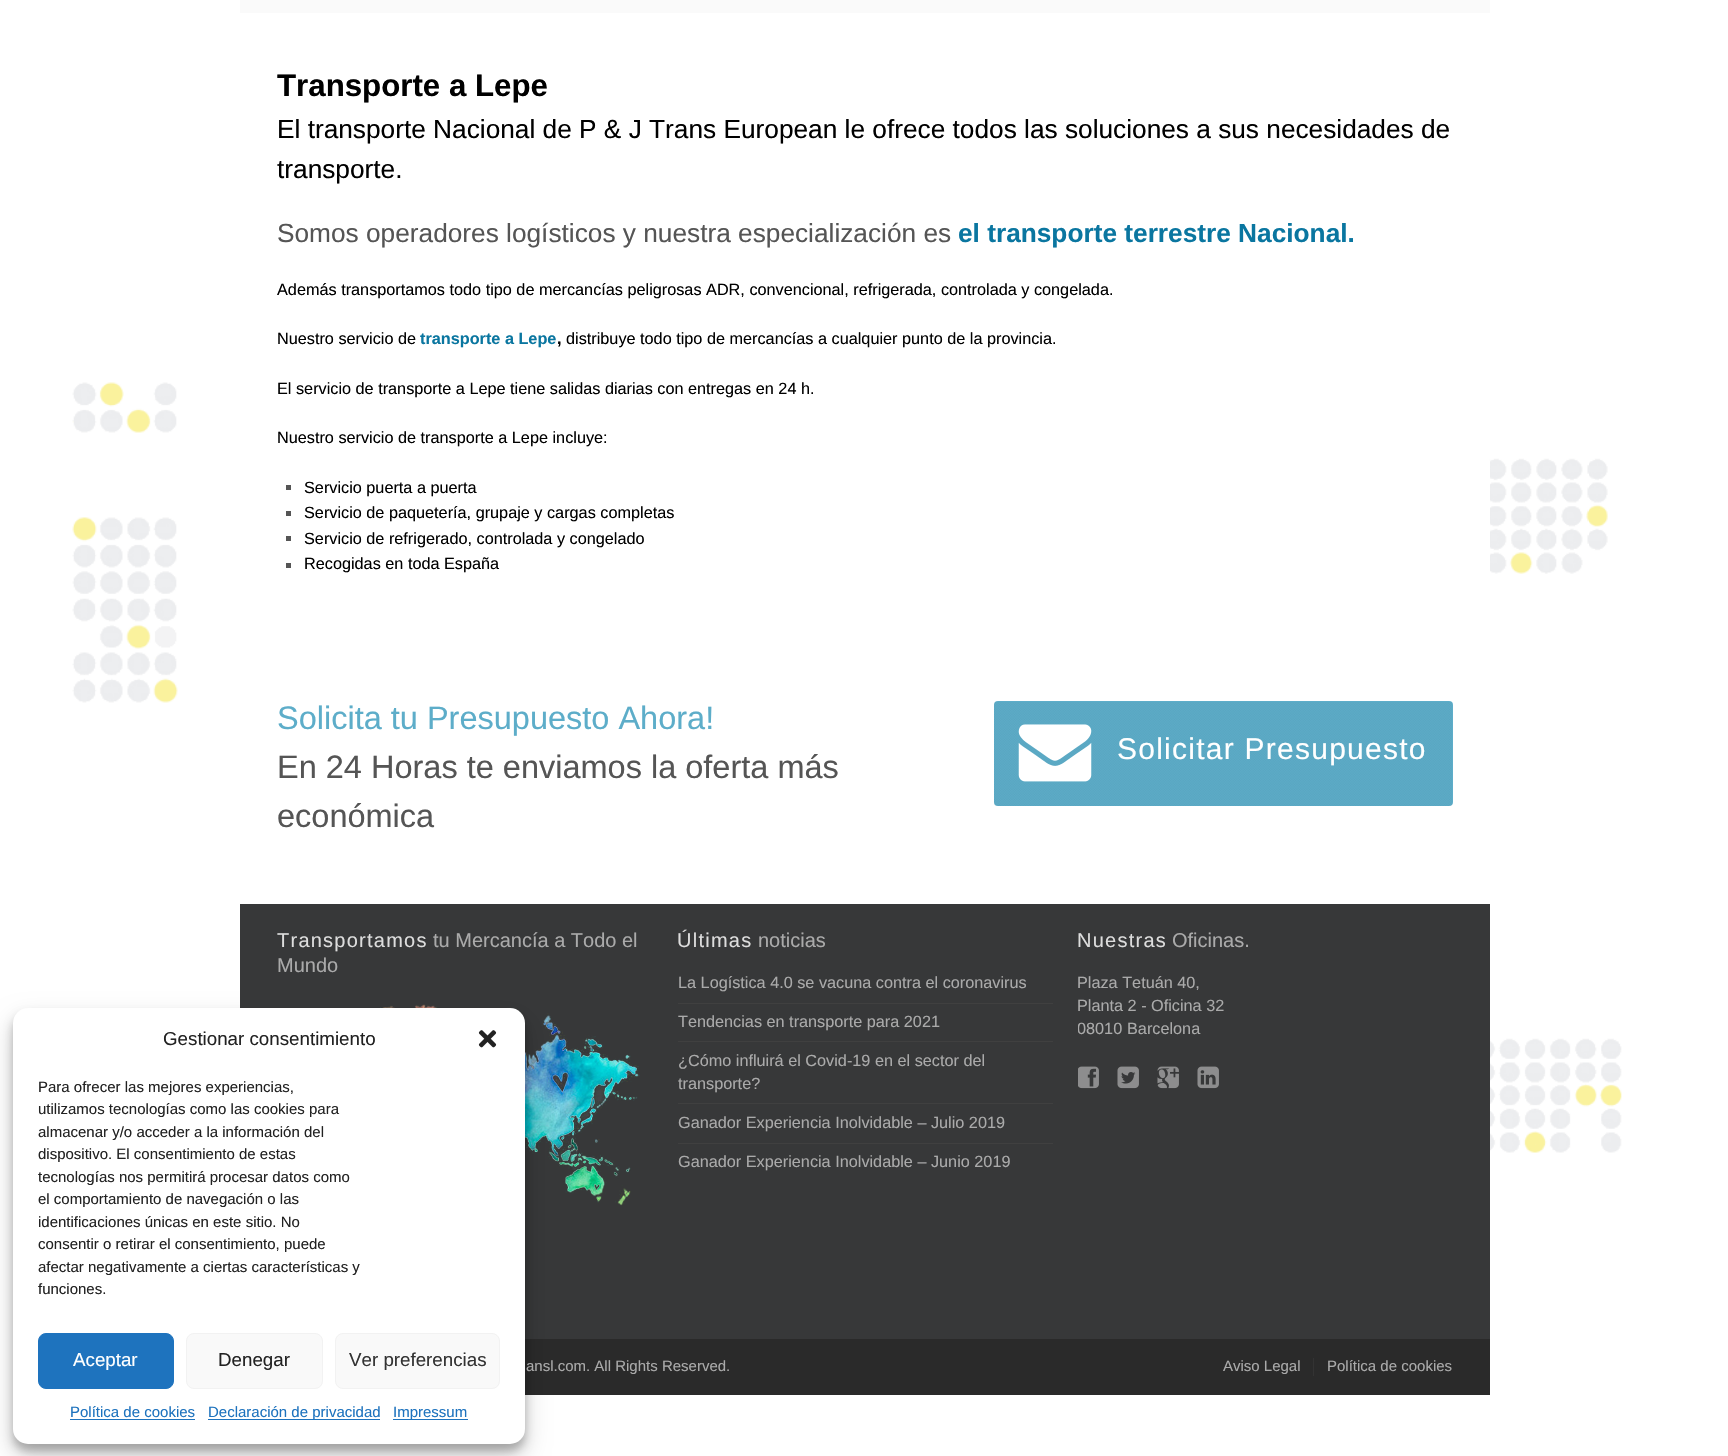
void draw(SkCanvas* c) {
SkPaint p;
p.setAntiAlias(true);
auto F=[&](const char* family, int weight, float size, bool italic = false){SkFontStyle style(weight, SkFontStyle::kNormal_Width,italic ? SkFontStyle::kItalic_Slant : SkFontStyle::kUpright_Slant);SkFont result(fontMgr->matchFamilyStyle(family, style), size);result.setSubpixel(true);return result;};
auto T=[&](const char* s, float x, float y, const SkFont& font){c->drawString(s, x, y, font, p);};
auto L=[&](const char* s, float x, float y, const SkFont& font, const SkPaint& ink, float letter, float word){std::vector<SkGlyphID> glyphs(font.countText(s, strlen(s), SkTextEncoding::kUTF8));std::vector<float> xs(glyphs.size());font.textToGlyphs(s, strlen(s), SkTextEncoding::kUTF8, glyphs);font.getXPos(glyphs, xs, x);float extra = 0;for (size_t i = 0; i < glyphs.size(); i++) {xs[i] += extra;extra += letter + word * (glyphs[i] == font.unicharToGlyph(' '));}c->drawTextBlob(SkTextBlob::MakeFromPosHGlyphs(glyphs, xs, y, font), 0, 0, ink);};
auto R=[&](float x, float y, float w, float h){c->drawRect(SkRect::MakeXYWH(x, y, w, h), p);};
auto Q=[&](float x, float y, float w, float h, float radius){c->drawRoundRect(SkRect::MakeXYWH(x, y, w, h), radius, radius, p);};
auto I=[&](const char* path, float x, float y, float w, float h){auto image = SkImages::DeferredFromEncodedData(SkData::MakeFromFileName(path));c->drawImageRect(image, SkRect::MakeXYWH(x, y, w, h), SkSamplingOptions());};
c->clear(0xffffffff);
I("1.png",72,382,1550,779);
p.setColor(0xff373839);
R(240,904,1250,435);
I("5.png",380,1004,260,202);
p.setColor(0xff2a2a2a);
R(525,1339,965,56);
p.setColor(0x3b000000);
p.setMaskFilter(SkMaskFilter::MakeBlur(kNormal_SkBlurStyle, 4));
c->drawRoundRect(SkRect::MakeXYWH(13,1015,512,436),15,15,p);
p.setMaskFilter(nullptr);
p.setColor(0x30000000);
p.setMaskFilter(SkMaskFilter::MakeBlur(kNormal_SkBlurStyle, 12.5));
c->drawRoundRect(SkRect::MakeXYWH(13,1020,512,436),15,15,p);
p.setMaskFilter(nullptr);
p.setColor(0xffffffff);
Q(13,1008,512,436,15);
auto f1 = F("Liberation Sans",400,18.75);
p.setColor(0xff222222);
T("Gestionar consentimiento",163,1045,f1);
I("2.png",478,1030,19,18);
auto f2 = F("Liberation Sans",400,15);
T("Para ofrecer las mejores experiencias,",38,1092,f2);
T("utilizamos tecnologías como las cookies para",38,1114,f2);
T("almacenar y/o acceder a la información del",38,1137,f2);
T("dispositivo. El consentimiento de estas",38,1159,f2);
T("tecnologías nos permitirá procesar datos como",38,1182,f2);
T("el comportamiento de navegación o las",38,1204,f2);
T("identificaciones únicas en este sitio. No",38,1227,f2);
T("consentir o retirar el consentimiento, puede",38,1249,f2);
T("afectar negativamente a ciertas características y",38,1272,f2);
T("funciones.",38,1294,f2);
p.setColor(0xff1e73be);
c->drawRoundRect(SkRect::MakeXYWH(38.5,1333.5,135,55),7.5,7.5,p);
p.setStroke(true);
p.setStrokeWidth(1);
c->drawRoundRect(SkRect::MakeXYWH(38.5,1333.5,135,55),7.5,7.5,p);
p.setStroke(false);
p.setColor(0xffffffff);
T("Aceptar",73,1366,f1);
p.setColor(0xfff9f9f9);
c->drawRoundRect(SkRect::MakeXYWH(186.5,1333.5,136,55),7.5,7.5,p);
p.setStroke(true);
p.setColor(0xfff2f2f2);
c->drawRoundRect(SkRect::MakeXYWH(186.5,1333.5,136,55),7.5,7.5,p);
p.setStroke(false);
p.setColor(0xff222222);
T("Denegar",218,1366,f1);
p.setColor(0xfff9f9f9);
c->drawRoundRect(SkRect::MakeXYWH(335.5,1333.5,164,55),7.5,7.5,p);
p.setStroke(true);
p.setColor(0xfff2f2f2);
c->drawRoundRect(SkRect::MakeXYWH(335.5,1333.5,164,55),7.5,7.5,p);
p.setStroke(false);
p.setColor(0xff333333);
T("Ver preferencias",349,1366,f1);
p.setColor(0xff1e73be);
T("Política de cookies",70,1417,f2);
R(70,1419,125,1);
R(208,1419,172,1);
T("Declaración de privacidad",208,1417,f2);
R(393,1419,75,1);
T("Impressum",393,1417,f2);
p.setColor(0xfffafafa);
R(240,0,1250,13);
p.setColor(0xffffffff);
R(1486,461,4,111);
auto f3 = F("Liberation Sans",700,31.25);
p.setColor(0xff000000);
T("Transporte a Lepe",277,96,f3);
auto f4 = F("Liberation Sans",400,26.25);
T("El transporte Nacional de P & J Trans European le ofrece todos las soluciones a sus necesidades de",277,138,f4);
T("transporte.",277,178,f4);
p.setColor(0xff555555);
T("Somos operadores logísticos y nuestra especialización es",277,242,f4);
auto f5 = F("Liberation Sans",700,26.25);
p.setColor(0xff0a76a0);
T("el transporte terrestre Nacional.",958,242,f5);
auto f6 = F("Liberation Sans",400,16.25);
p.setColor(0xff000000);
T("Además transportamos todo tipo de mercancías peligrosas ADR, convencional, refrigerada, controlada y congelada.",277,295,f6);
T("Nuestro servicio de",277,344,f6);
auto f7 = F("Liberation Sans",700,16.25);
p.setColor(0xff0a76a0);
T("transporte a Lepe",420,344,f7);
p.setColor(0xff000000);
T(",",557,344,f7);
T("distribuye todo tipo de mercancías a cualquier punto de la provincia.",566,344,f6);
T("El servicio de transporte a Lepe tiene salidas diarias con entregas en 24 h.",277,394,f6);
T("Nuestro servicio de transporte a Lepe incluye:",277,443,f6);
p.setColor(0xff555555);
R(286,485,5,5);
p.setColor(0xff000000);
T("Servicio puerta a puerta",304,493,f6);
p.setColor(0xff555555);
R(286,511,5,5);
p.setColor(0xff000000);
T("Servicio de paquetería, grupaje y cargas completas",304,518,f6);
p.setColor(0xff555555);
R(286,536,5,5);
p.setColor(0xff000000);
T("Servicio de refrigerado, controlada y congelado",304,544,f6);
p.setColor(0xff555555);
R(286,563,5,5);
p.setColor(0xff000000);
T("Recogidas en toda España",304,569,f6);
auto f8 = F("Liberation Sans",400,32.5);
p.setColor(0xff5dadc9);
T("Solicita tu Presupuesto Ahora!",277,729,f8);
p.setColor(0xff555555);
T("En 24 Horas te enviamos la oferta más",277,778,f8);
T("económica",277,827,f8);
p.setColor(0xff5dadc9);
Q(994,701,459,105,4);
I("3.png",994,702,458,104);
I("4.png",1018,724,74,58);
auto f9 = F("Liberation Sans",400,30);
p.setColor(0xffffffff);
L("Solicitar Presupuesto",1117,759,f9,p,1.25,0);
auto f10 = F("Liberation Sans",400,20);
p.setColor(0xffdddddd);
L("Transportamos",277,947,f10,p,1.25,0);
p.setColor(0xffaaaaaa);
T("tu Mercancía a Todo el",433,947,f10);
T("Mundo",277,972,f10);
p.setColor(0xffdddddd);
L("Últimas",677,947,f10,p,1.25,0);
p.setColor(0xffaaaaaa);
T("noticias",758,947,f10);
p.setColor(0xff404040);
R(678,1003,375,1);
p.setColor(0xffaaaaaa);
T("La Logística 4.0 se vacuna contra el coronavirus",678,988,f6);
p.setColor(0xff404040);
R(678,1041,375,1);
p.setColor(0xffaaaaaa);
T("Tendencias en transporte para 2021",678,1027,f6);
p.setColor(0xff404040);
R(678,1103,375,1);
p.setColor(0xffaaaaaa);
T("¿Cómo influirá el Covid-19 en el sector del",678,1066,f6);
T("transporte?",678,1089,f6);
p.setColor(0xff404040);
R(678,1143,375,1);
p.setColor(0xffaaaaaa);
T("Ganador Experiencia Inolvidable – Julio 2019",678,1128,f6);
T("Ganador Experiencia Inolvidable – Junio 2019",678,1167,f6);
p.setColor(0xffdddddd);
L("Nuestras",1077,947,f10,p,1.25,0);
p.setColor(0xffaaaaaa);
T("Oficinas.",1172,947,f10);
T("Plaza Tetuán 40,",1077,988,f6);
T("Planta 2 - Oficina 32",1077,1011,f6);
c->save();
c->clipRect(SkRect::MakeXYWH(1078,929,375,111));
T("08010",1077,1034,f6);
c->restore();
T("Barcelona",1127,1034,f6);
I("6.png",1078,1066,21,23);
I("7.png",1117,1066,22,23);
I("8.png",1157,1066,22,23);
I("9.png",1197,1066,22,23);
T("ansl.com. All Rights Reserved.",526,1371,f2);
T("Aviso Legal",1223,1371,f2);
p.setColor(0xff333333);
R(1313,1358,1,18);
p.setColor(0xffaaaaaa);
T("Política de cookies",1327,1371,f2);
}
